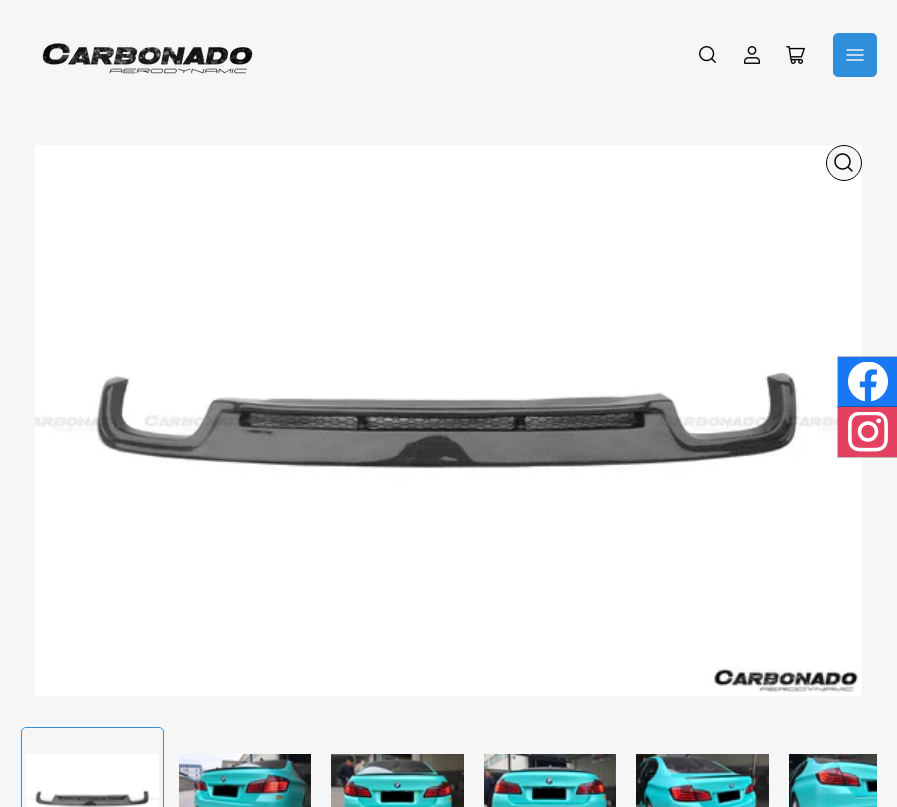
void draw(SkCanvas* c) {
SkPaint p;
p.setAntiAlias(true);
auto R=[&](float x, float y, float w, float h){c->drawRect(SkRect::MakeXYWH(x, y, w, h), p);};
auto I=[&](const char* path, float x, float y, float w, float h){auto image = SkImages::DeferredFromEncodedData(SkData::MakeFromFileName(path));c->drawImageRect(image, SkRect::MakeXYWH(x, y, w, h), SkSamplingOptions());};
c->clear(0xfff6f6f6);
I("1.png",42,43,211,31);
I("2.png",699,46,17,17);
I("3.png",744,46,16,18);
I("4.png",786,46,19,18);
p.setColor(0xff2f8fdb);
c->drawRoundRect(SkRect::MakeXYWH(833.5,33.5,43,43),4.5,4.5,p);
p.setStroke(true);
p.setStrokeWidth(1);
c->drawRoundRect(SkRect::MakeXYWH(833.5,33.5,43,43),4.5,4.5,p);
I("5.png",846,49,18,12);
I("6.png",35,145,827,551);
p.setStroke(false);
p.setColor(0xfff7f7f7);
c->drawCircle(844,163,17.5,p);
p.setStroke(true);
p.setColor(0xff000000);
c->drawCircle(844,163,17.5,p);
I("7.png",834,153,19,19);
p.setColor(0xff2f8fdb);
c->drawRoundRect(SkRect::MakeXYWH(21.5,727.5,142,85),4.5,4.5,p);
I("8.png",26,754,133,53);
I("9.png",179,754,132,53);
I("10.png",331,754,133,53);
I("11.png",484,754,132,53);
I("12.png",636,754,133,53);
I("13.png",789,754,88,53);
p.setColor(0x40000000);
c->drawRect(SkRect::MakeXYWH(837.5,356.5,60,51),p);
p.setStroke(false);
p.setColor(0xff1877f2);
R(838,357,59,50);
I("14.png",848,362,40,40);
p.setStroke(true);
p.setColor(0x40000000);
c->drawRect(SkRect::MakeXYWH(837.5,406.5,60,51),p);
p.setStroke(false);
p.setColor(0xffe4405f);
R(838,407,59,50);
I("15.png",848,412,40,40);
}
